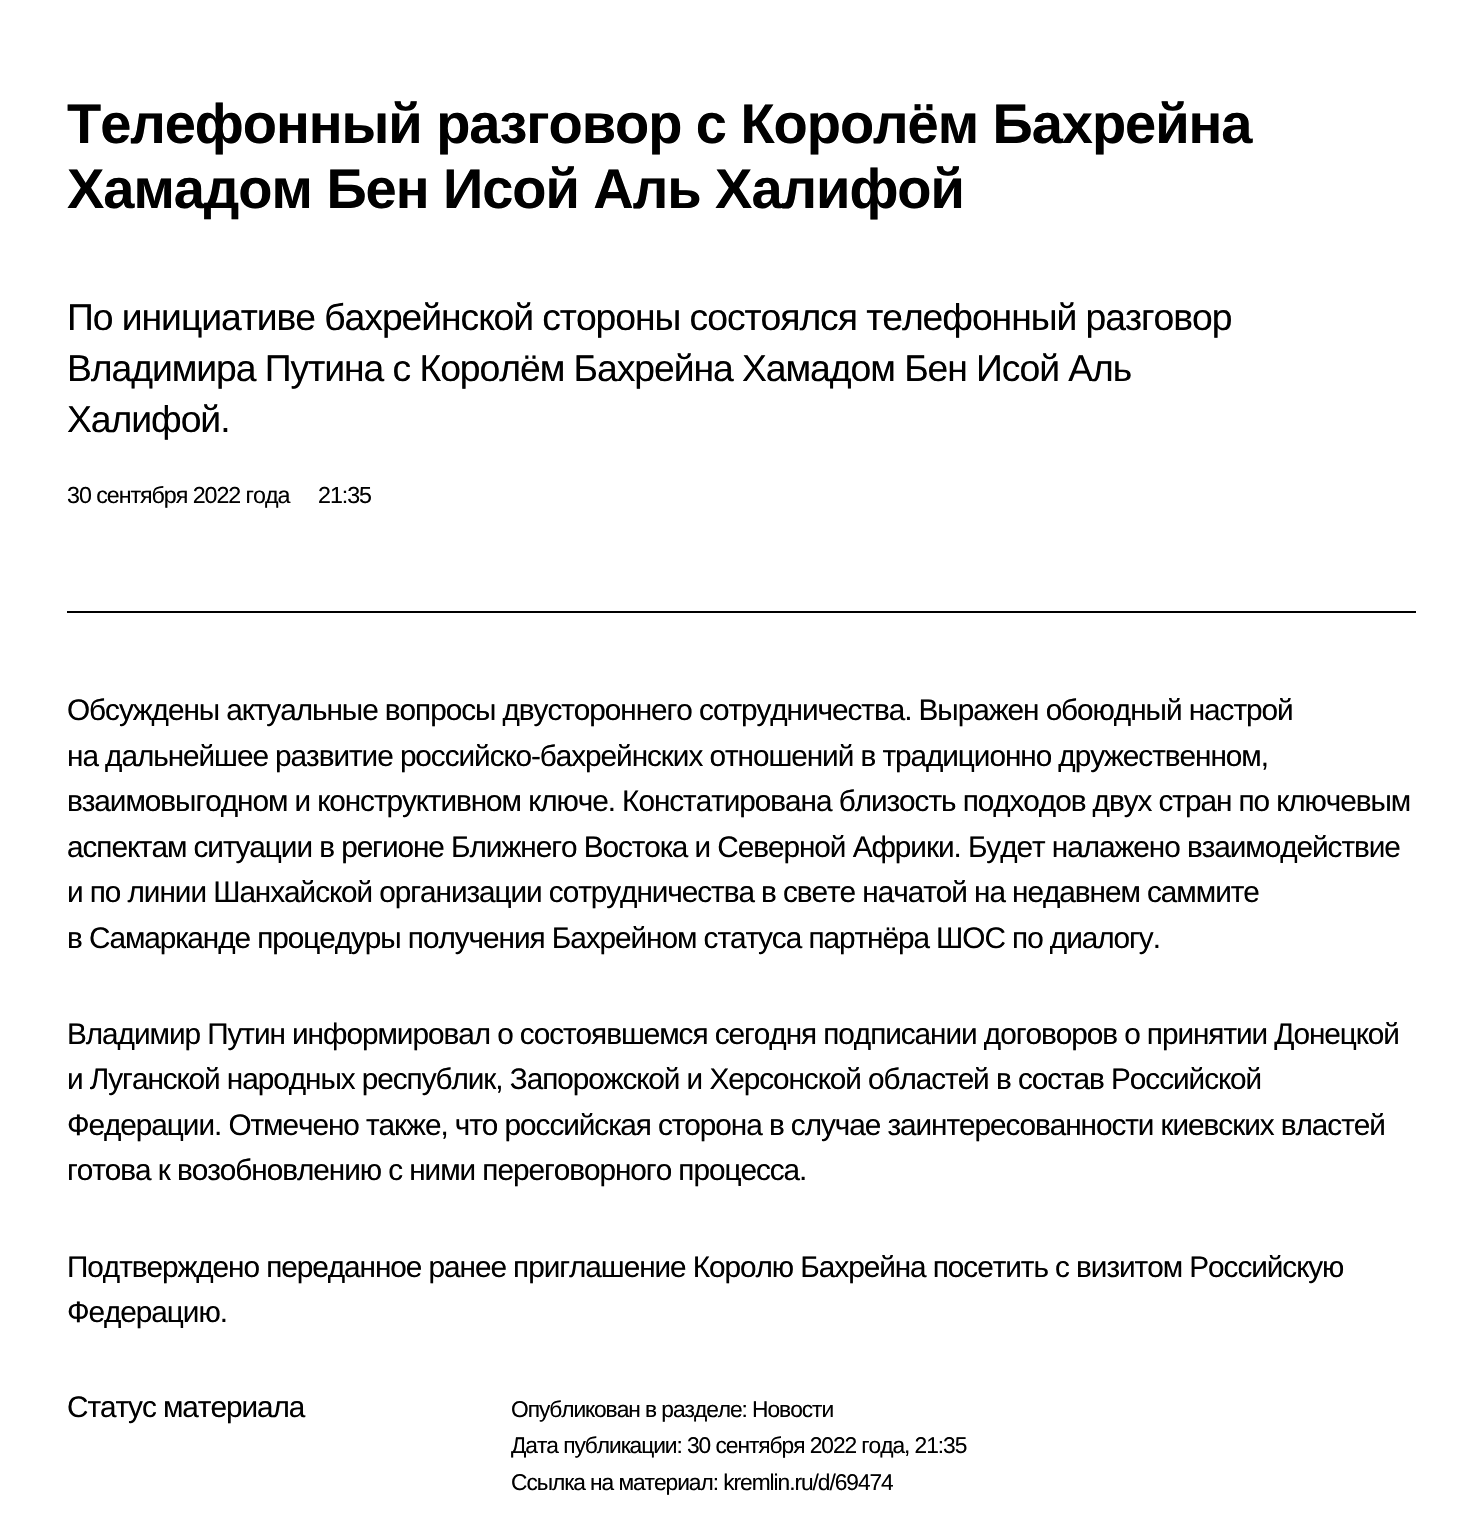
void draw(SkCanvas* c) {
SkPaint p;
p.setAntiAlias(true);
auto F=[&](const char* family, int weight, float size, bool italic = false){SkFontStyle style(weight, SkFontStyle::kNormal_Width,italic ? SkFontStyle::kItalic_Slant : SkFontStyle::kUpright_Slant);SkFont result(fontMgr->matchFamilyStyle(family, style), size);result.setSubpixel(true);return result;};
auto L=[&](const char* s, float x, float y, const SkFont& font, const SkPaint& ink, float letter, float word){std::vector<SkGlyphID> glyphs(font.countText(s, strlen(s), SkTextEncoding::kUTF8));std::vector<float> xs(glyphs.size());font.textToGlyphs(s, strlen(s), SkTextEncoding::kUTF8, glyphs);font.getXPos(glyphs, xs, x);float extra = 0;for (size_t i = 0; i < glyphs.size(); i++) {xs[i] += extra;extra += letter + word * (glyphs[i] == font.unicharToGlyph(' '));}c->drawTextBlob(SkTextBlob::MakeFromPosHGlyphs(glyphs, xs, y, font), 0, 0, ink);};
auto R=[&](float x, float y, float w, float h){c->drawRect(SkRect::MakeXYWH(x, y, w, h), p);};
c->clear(0xffffffff);
p.setColor(0xff000000);
R(67,611,1349,2);
auto f1 = F("Liberation Sans",700,56);
L("Телефонный разговор с Королём Бахрейна",67,143,f1,p,-1.05,0);
L("Хамадом Бен Исой Аль Халифой",67,208,f1,p,-1.05,0);
auto f2 = F("Liberation Sans",400,37.3);
L("По инициативе бахрейнской стороны состоялся телефонный разговор",67,330,f2,p,-1.05,0);
L("Владимира Путина с Королём Бахрейна Хамадом Бен Исой Аль",67,381,f2,p,-1.05,0);
L("Халифой.",67,432,f2,p,-1.05,0);
auto f3 = F("Liberation Sans",400,23.25);
L("30 сентября 2022 года",67,503,f3,p,-1.05,0);
L("21:35",318,503,f3,p,-1.05,0);
auto f4 = F("Liberation Sans",400,29.75);
L("Обсуждены актуальные вопросы двустороннего сотрудничества. Выражен обоюдный настрой",67,720,f4,p,-1.05,0);
L("на дальнейшее развитие российско-бахрейнских отношений в традиционно дружественном,",67,766,f4,p,-1.05,0);
L("взаимовыгодном и конструктивном ключе. Констатирована близость подходов двух стран по ключевым",67,811,f4,p,-1.05,0);
L("аспектам ситуации в регионе Ближнего Востока и Северной Африки. Будет налажено взаимодействие",67,857,f4,p,-1.05,0);
L("и по линии Шанхайской организации сотрудничества",67,902,f4,p,-1.05,0);
L("в свете начатой на недавнем саммите",761,902,f4,p,-1.05,0);
L("в Самарканде процедуры получения Бахрейном статуса партнёра ШОС по диалогу.",67,948,f4,p,-1.05,0);
L("Владимир Путин информировал о состоявшемся сегодня подписании договоров о принятии Донецкой",67,1044,f4,p,-1.05,0);
L("и Луганской народных республик, Запорожской и Херсонской областей в состав Российской",67,1089,f4,p,-1.05,0);
L("Федерации. Отмечено также, что российская сторона в случае заинтересованности киевских властей",67,1135,f4,p,-1.05,0);
L("готова к возобновлению с ними переговорного процесса.",67,1180,f4,p,-1.05,0);
L("Подтверждено переданное ранее приглашение Королю Бахрейна посетить с визитом Российскую",67,1277,f4,p,-1.05,0);
L("Федерацию.",67,1322,f4,p,-1.05,0);
L("Статус материала",67,1417,f4,p,-1.05,0);
auto f5 = F("Liberation Sans",400,22.75);
L("Опубликован в разделе: Новости",511,1417,f5,p,-1.05,0);
L("Дата публикации: 30 сентября 2022 года, 21:35",511,1453,f5,p,-1.05,0);
L("Ссылка на материал: kremlin.ru/d/69474",511,1490,f5,p,-1.05,0);
}
